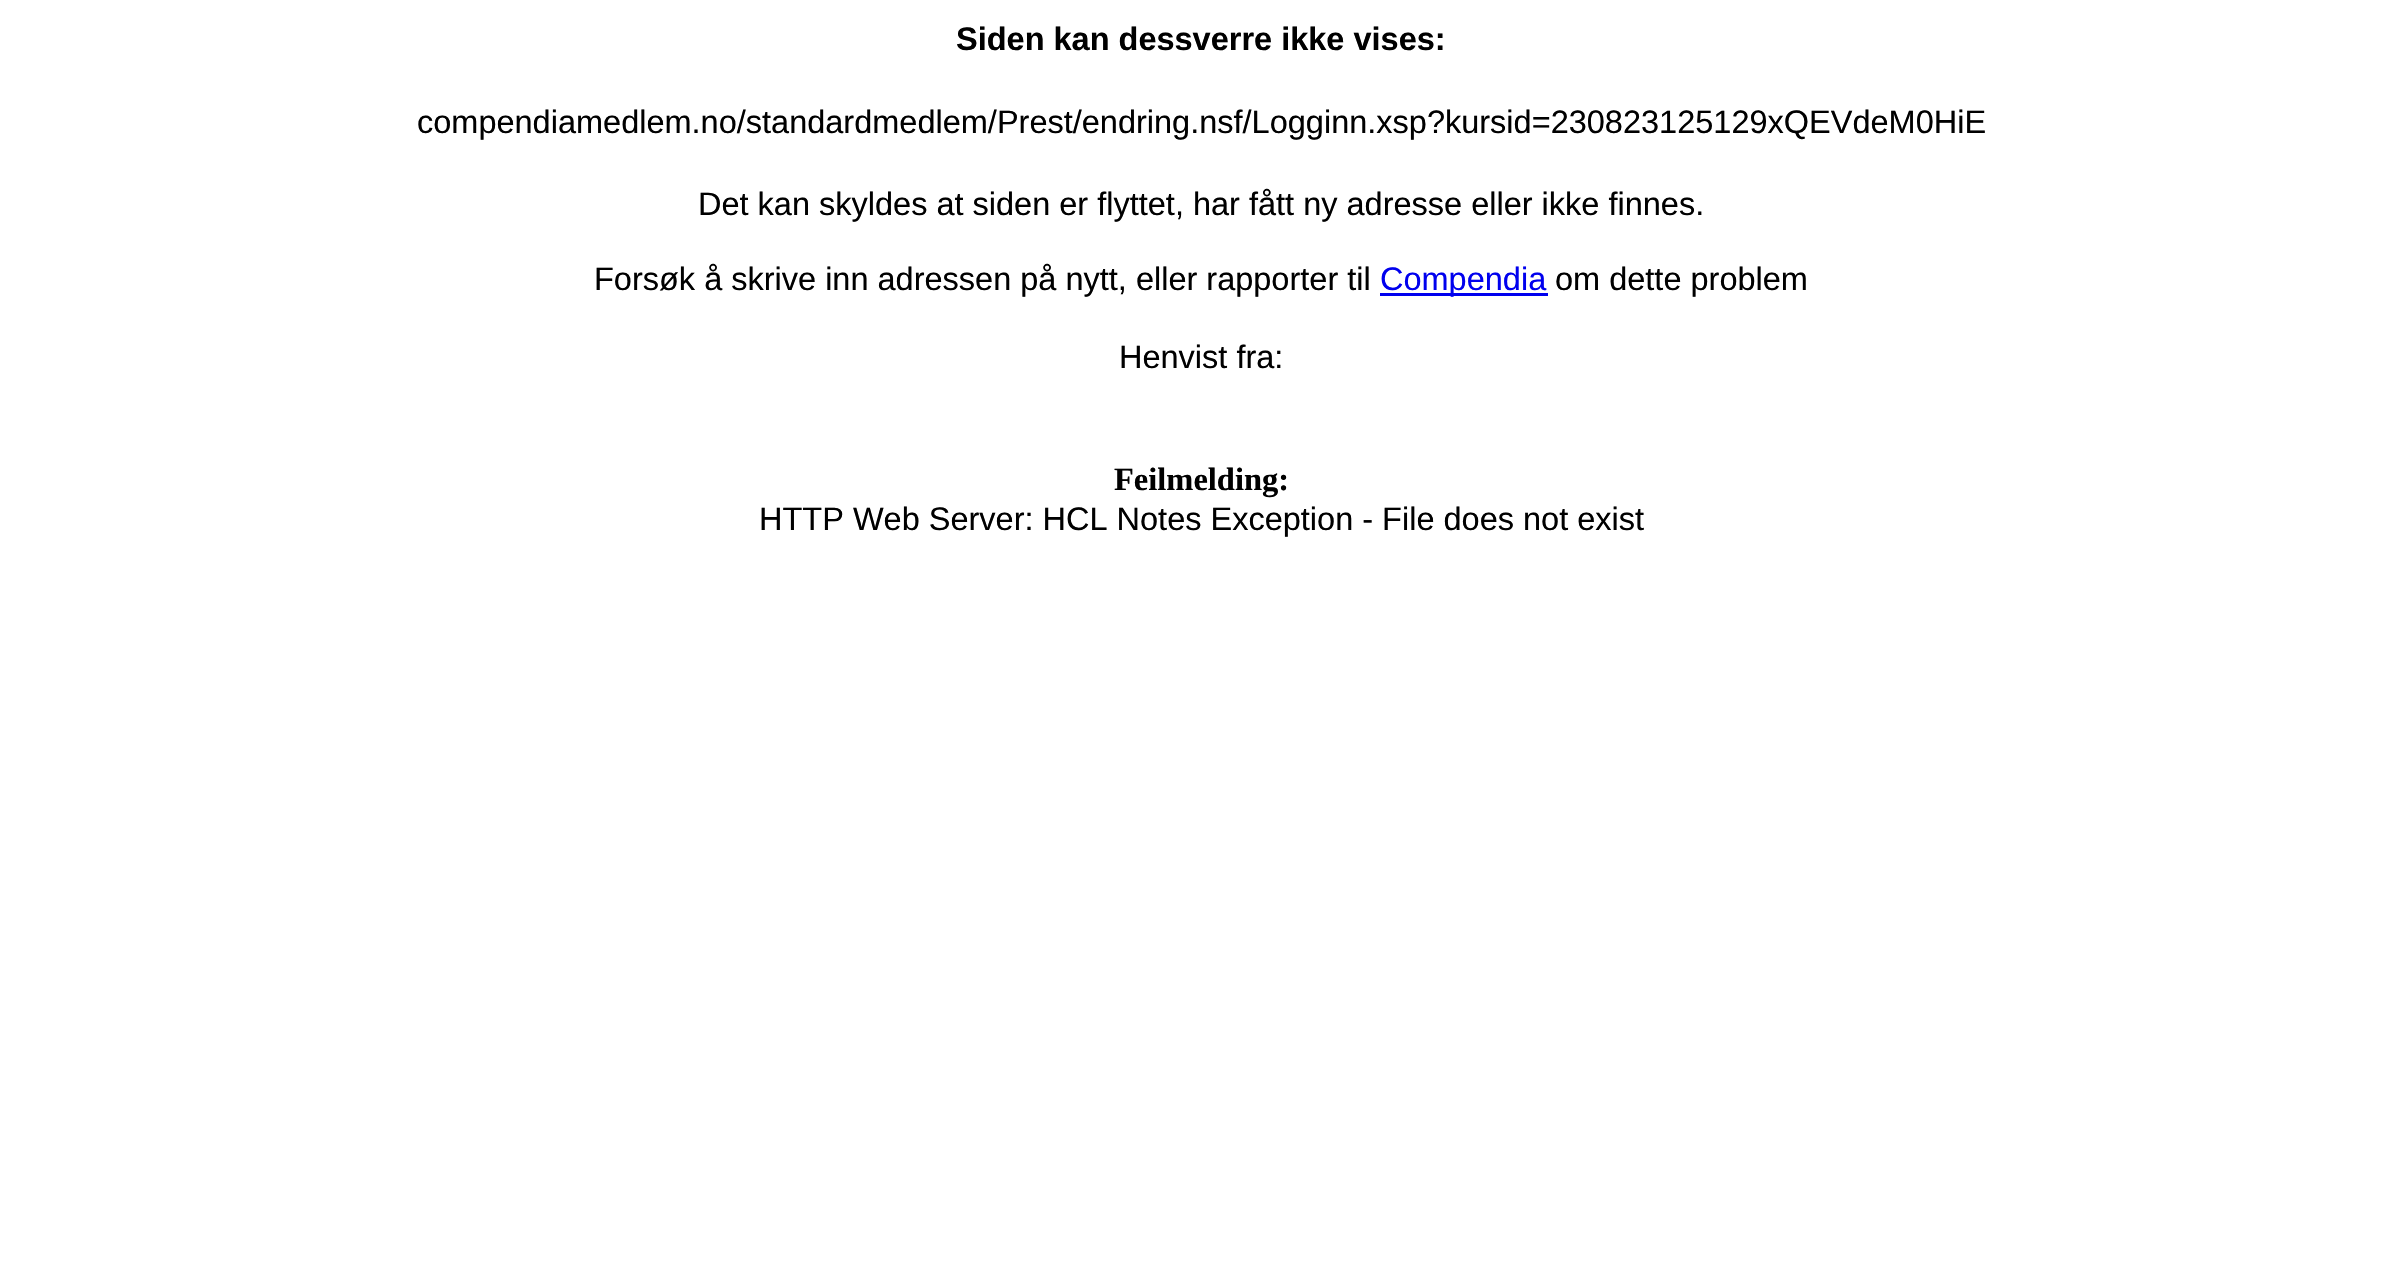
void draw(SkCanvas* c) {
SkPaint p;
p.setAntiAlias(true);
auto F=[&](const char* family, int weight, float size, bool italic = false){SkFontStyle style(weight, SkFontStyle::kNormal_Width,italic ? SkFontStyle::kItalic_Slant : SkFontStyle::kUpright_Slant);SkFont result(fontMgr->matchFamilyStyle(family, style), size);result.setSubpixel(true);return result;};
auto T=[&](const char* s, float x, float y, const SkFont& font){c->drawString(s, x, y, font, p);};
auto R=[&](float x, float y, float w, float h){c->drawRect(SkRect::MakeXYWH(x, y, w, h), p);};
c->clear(0xffffffff);
auto f1 = F("Liberation Sans",700,32.5);
p.setColor(0xff000000);
T("Siden kan dessverre ikke vises:",956,50,f1);
auto f2 = F("Liberation Sans",400,32.5);
T("compendiamedlem.no/standardmedlem/Prest/endring.nsf/Logginn.xsp?kursid=230823125129xQEVdeM0HiE",417,133,f2);
T("Det kan skyldes at siden er flyttet, har fått ny adresse eller ikke finnes.",698,215,f2);
T("Forsøk å skrive inn adressen på nytt, eller rapporter til",594,290,f2);
p.setColor(0xff0000ee);
R(1380,293,168,3);
T("Compendia",1380,290,f2);
p.setColor(0xff000000);
T("om dette problem",1555,290,f2);
T("Henvist fra:",1119,368,f2);
auto f3 = F("Liberation Serif",700,32.5);
T("Feilmelding:",1114,490,f3);
T("HTTP Web Server: HCL Notes Exception - File does not exist",759,530,f2);
}
